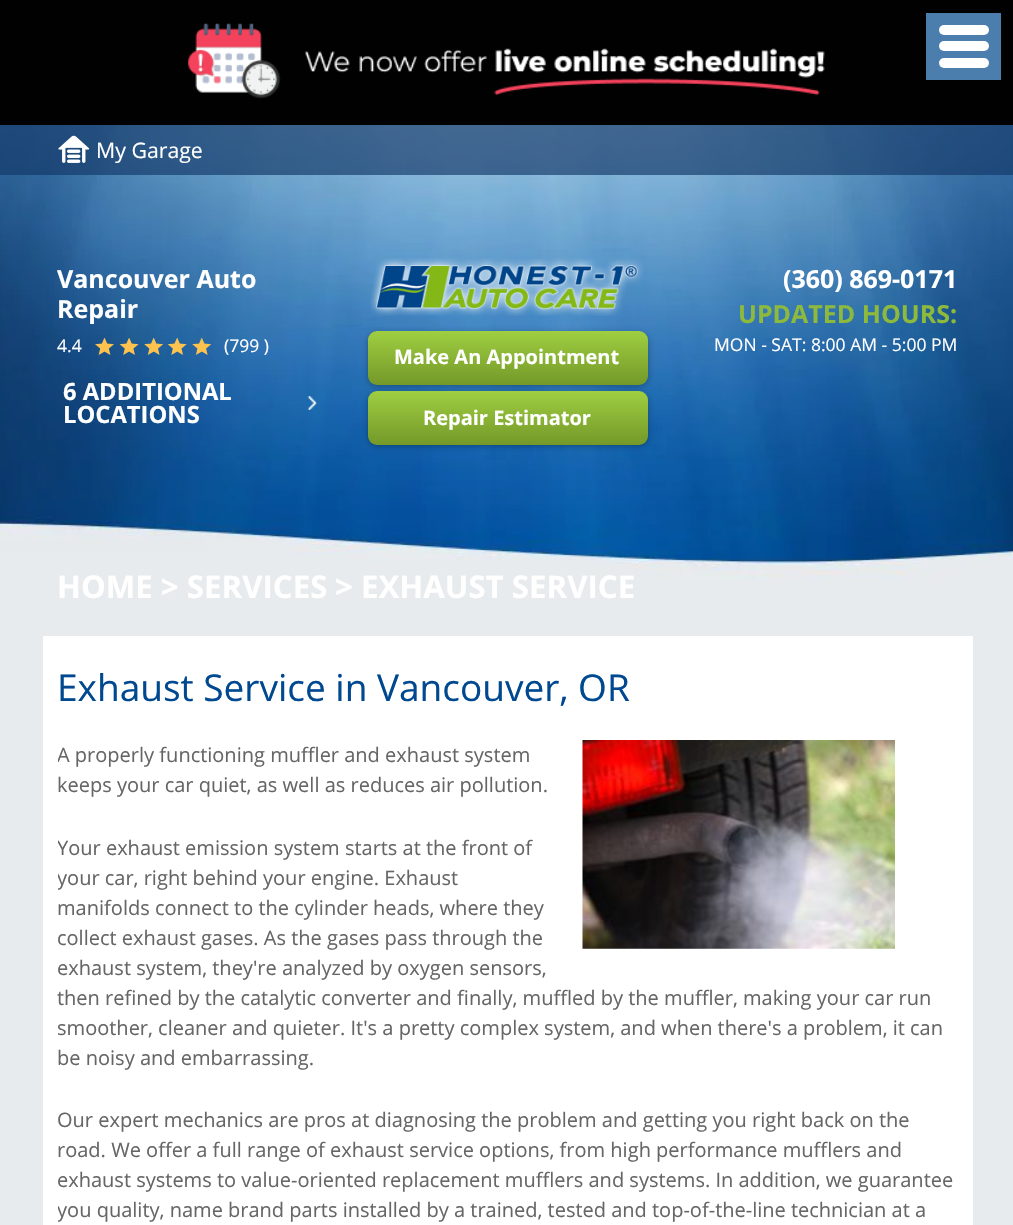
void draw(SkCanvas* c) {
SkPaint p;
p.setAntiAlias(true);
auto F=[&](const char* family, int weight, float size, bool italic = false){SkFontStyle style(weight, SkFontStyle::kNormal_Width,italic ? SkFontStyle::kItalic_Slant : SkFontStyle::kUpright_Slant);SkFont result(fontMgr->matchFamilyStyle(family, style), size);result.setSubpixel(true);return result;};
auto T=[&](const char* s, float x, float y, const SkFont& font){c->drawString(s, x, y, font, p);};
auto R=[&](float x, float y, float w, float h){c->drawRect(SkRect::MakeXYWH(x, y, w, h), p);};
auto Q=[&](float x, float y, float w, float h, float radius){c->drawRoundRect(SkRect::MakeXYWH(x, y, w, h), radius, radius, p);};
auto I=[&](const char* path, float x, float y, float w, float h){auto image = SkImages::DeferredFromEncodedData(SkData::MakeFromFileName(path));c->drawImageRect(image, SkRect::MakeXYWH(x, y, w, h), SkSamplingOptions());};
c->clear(0xffe8ebed);
I("1.png",0,125,1013,455);
p.setColor(0xff010101);
R(0,0,1013,125);
I("2.png",188,23,637,76);
p.setColor(0xa6113565);
R(0,125,1013,50);
I("3.png",58,135,32,28);
auto f1 = F("Open Sans",400,21.25);
p.setColor(0xffffffff);
T("My Garage",96,158,f1);
p.setColor(0xff4b7dad);
R(926,13,75,67);
p.setColor(0xffffffff);
Q(939,41,50,10,5);
Q(939,25,50,10,5);
Q(939,58,50,10,5);
auto f2 = F("Open Sans",700,25);
T("Vancouver Auto",57,288,f2);
T("Repair",57,318,f2);
I("4.png",95,338,116,17);
auto f3 = F("Open Sans",400,17.5);
T("4.4",57,352,f3);
T("(799 )",224,352,f3);
I("5.png",307,396,10,14);
auto f4 = F("Open Sans",700,23.75);
T("6 ADDITIONAL",63,400,f4);
T("LOCATIONS",63,423,f4);
I("6.png",370,258,274,58);
p.setColor(0x4d000000);
p.setMaskFilter(SkMaskFilter::MakeBlur(kNormal_SkBlurStyle, 3));
c->drawRoundRect(SkRect::MakeXYWH(368,333,280,53),9,9,p);
p.setMaskFilter(nullptr);
{
const SkColor colors[] = {0xff9fce41,0xff749929};
const float stops[] = {0,1};
const SkPoint ends[] = {{508,331}, {508,385}};
p.setShader(SkGradientShader::MakeLinear(ends, colors, stops, 2, SkTileMode::kClamp));
p.setAlpha(255);
}
Q(368,331,280,54,9);
auto f5 = F("Open Sans",700,20);
p.setShader(nullptr);
p.setColor(0xffffffff);
T("Make An Appointment",394,364,f5);
p.setColor(0x4d000000);
p.setMaskFilter(SkMaskFilter::MakeBlur(kNormal_SkBlurStyle, 3));
c->drawRoundRect(SkRect::MakeXYWH(368,393,280,53),9,9,p);
p.setMaskFilter(nullptr);
{
const SkColor colors[] = {0xff9fce41,0xff749929};
const float stops[] = {0,1};
const SkPoint ends[] = {{508,391}, {508,445}};
p.setShader(SkGradientShader::MakeLinear(ends, colors, stops, 2, SkTileMode::kClamp));
p.setAlpha(255);
}
Q(368,391,280,54,9);
p.setShader(nullptr);
p.setColor(0xffffffff);
T("Repair Estimator",423,425,f5);
T("(360) 869-0171",783,288,f2);
p.setColor(0xff8db93d);
T("UPDATED HOURS:",738,323,f2);
p.setColor(0xffffffff);
T("MON - SAT: 8:00 AM - 5:00 PM",714,351,f3);
auto f6 = F("Open Sans",700,31.25);
T("HOME > SERVICES",57,598,f6);
T("> EXHAUST SERVICE",335,598,f6);
R(43,636,930,589);
auto f7 = F("Open Sans",400,37);
p.setColor(0xff004990);
T("Exhaust Service in Vancouver, OR",57,701,f7);
c->save();
c->clipRect(SkRect::MakeXYWH(58,636,900,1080));
auto f8 = F("Open Sans",400,20);
p.setColor(0xff666666);
T("A properly functioning muffler and exhaust system",57,762,f8);
c->restore();
T("keeps your car quiet, as well as reduces air pollution.",57,792,f8);
I("7.png",582,740,313,209);
c->save();
c->clipRect(SkRect::MakeXYWH(58,636,900,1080));
T("Your exhaust emission system starts at the front of",57,855,f8);
T("your car, right behind your engine. Exhaust",57,885,f8);
c->restore();
T("manifolds connect to the cylinder heads, where they",57,915,f8);
T("collect exhaust gases. As the gases pass through the",57,945,f8);
T("exhaust system, they're analyzed by oxygen sensors,",57,975,f8);
T("then refined by the catalytic converter and finally, muffled by the muffler, making your car run",57,1005,f8);
T("smoother, cleaner and quieter. It's a pretty complex system, and when there's a problem, it can",57,1035,f8);
T("be noisy and embarrassing.",57,1065,f8);
T("Our expert mechanics are pros at diagnosing the problem and getting you right back on the",57,1127,f8);
T("road. We offer a full range of exhaust service options, from high performance mufflers and",57,1157,f8);
T("exhaust systems to value-oriented replacement mufflers and systems. In addition, we guarantee",57,1187,f8);
c->save();
c->clipRect(SkRect::MakeXYWH(58,636,900,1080));
T("you quality, name brand parts installed by a trained, tested and top-of-the-line technician at a",57,1217,f8);
c->restore();
}
